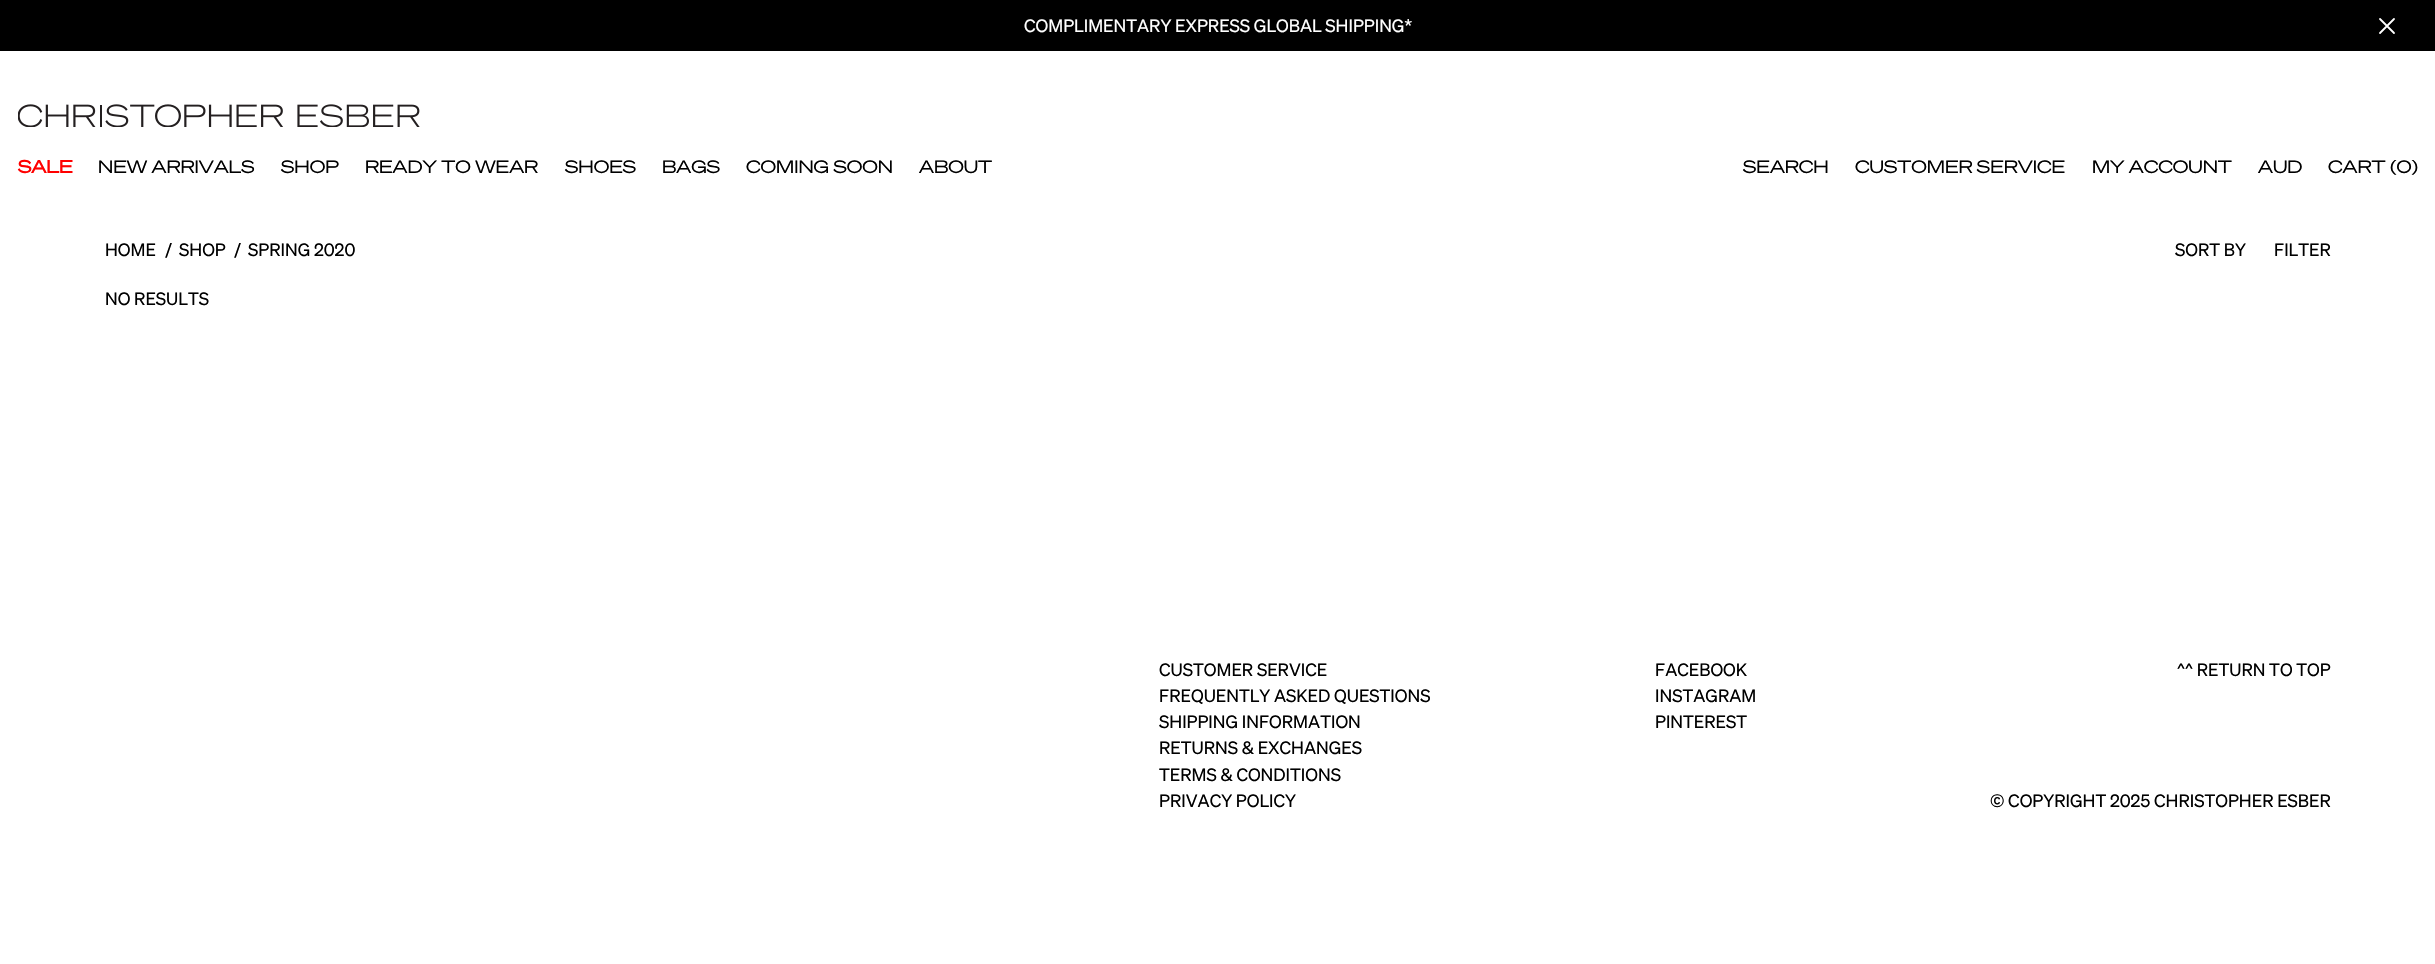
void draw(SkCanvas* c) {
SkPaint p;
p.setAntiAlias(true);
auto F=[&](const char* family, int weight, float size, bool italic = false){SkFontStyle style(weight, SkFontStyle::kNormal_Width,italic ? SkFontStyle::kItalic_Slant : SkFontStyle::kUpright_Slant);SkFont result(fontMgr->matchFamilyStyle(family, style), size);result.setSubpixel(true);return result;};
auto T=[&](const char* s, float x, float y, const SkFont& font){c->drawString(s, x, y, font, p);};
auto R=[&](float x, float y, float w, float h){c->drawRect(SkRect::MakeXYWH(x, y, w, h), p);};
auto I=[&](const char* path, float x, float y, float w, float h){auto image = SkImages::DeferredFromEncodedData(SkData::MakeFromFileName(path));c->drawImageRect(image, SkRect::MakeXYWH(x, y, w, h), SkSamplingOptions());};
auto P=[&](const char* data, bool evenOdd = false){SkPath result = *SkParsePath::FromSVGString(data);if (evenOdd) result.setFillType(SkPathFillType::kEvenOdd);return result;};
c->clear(0xffffffff);
p.setColor(0xff000000);
R(0,0,2435,51);
auto f1 = F("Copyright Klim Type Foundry",400,17.5);
p.setColor(0xffffffff);
T("COMPLIMENTARY EXPRESS GLOBAL SHIPPING*",1024,32,f1);
p.setStroke(true);
p.setStrokeWidth(1.8);
p.setStrokeCap(SkPaint::kRound_Cap);
p.setStrokeJoin(SkPaint::kRound_Join);
c->drawPath(P("M2394 19l-14 14m0-14l14 14"),p);
I("1.png",18,104,402,23);
auto f2 = F("Copyright Klim Type Foundry",700,17.5);
p.setStroke(false);
p.setColor(0xffff0000);
T("SALE",18,173,f2);
auto f3 = F("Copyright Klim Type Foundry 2",400,17.5);
p.setColor(0xff000000);
T("NEW ARRIVALS",98,173,f3);
T("SHOP",281,173,f3);
T("READY TO WEAR",365,173,f3);
T("SHOES",565,173,f3);
T("BAGS",662,173,f3);
T("COMING SOON",746,173,f3);
T("ABOUT",919,173,f3);
T("SEARCH",1743,173,f3);
T("CUSTOMER SERVICE",1855,173,f3);
T("MY ACCOUNT",2092,173,f3);
T("AUD",2258,173,f3);
T("CART (0)",2328,173,f3);
T("HOME",105,256,f1);
T("/",165,256,f1);
T("SHOP",179,256,f1);
T("/",234,256,f1);
T("SPRING 2020",248,256,f1);
T("SORT BY",2175,256,f1);
T("FILTER",2274,256,f1);
T("NO RESULTS",105,305,f1);
T("CUSTOMER SERVICE",1159,676,f1);
T("FREQUENTLY ASKED QUESTIONS",1159,702,f1);
T("SHIPPING INFORMATION",1159,728,f1);
T("RETURNS & EXCHANGES",1159,754,f1);
T("TERMS & CONDITIONS",1159,781,f1);
T("PRIVACY POLICY",1159,807,f1);
T("FACEBOOK",1655,676,f1);
T("INSTAGRAM",1655,702,f1);
T("PINTEREST",1655,728,f1);
T("^^ RETURN TO TOP",2177,676,f1);
T("© COPYRIGHT 2025 CHRISTOPHER ESBER",1990,807,f1);
}
